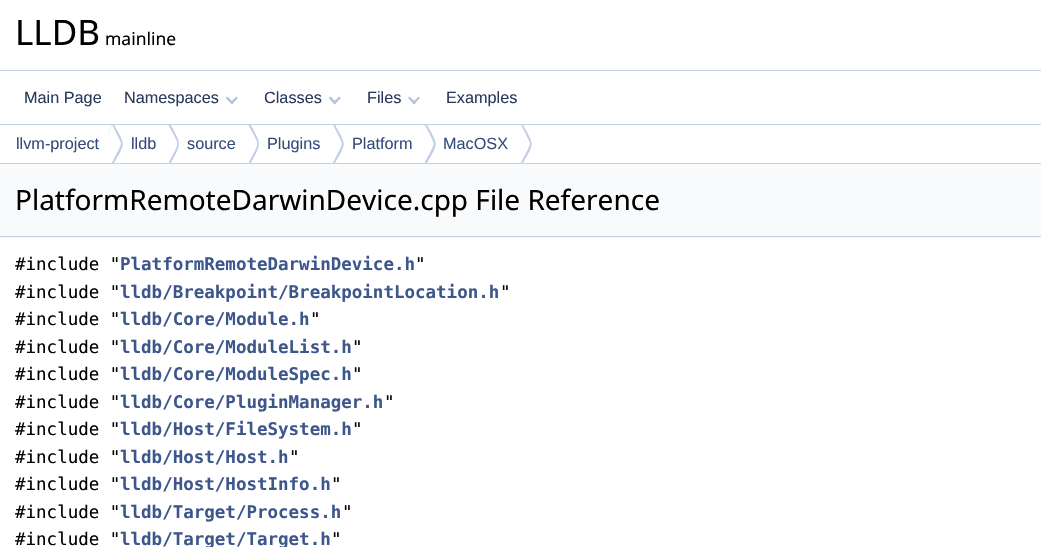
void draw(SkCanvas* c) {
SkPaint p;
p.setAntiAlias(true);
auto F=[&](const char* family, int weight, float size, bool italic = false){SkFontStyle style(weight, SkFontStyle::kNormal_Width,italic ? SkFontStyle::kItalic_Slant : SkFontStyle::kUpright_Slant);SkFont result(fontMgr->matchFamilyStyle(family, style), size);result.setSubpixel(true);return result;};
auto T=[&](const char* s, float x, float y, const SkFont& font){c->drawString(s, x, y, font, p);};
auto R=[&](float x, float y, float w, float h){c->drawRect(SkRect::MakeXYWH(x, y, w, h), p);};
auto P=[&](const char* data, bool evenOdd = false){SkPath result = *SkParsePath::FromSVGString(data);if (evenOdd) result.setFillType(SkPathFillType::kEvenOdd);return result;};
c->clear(0xffffffff);
p.setColor(0xffc4cfe5);
R(0,70,1041,1);
auto f1 = F("Noto Sans",400,35);
p.setColor(0xff000000);
T("LLDB",15,45,f1);
auto f2 = F("Noto Sans",400,17.5);
T("mainline",105,45,f2);
p.setColor(0xffc4cfe5);
R(0,124,1041,1);
auto f3 = F("Liberation Sans",400,16.25);
p.setColor(0xff283a5d);
T("Main Page",24,103,f3);
T("Namespaces",124,103,f3);
p.setColor(0xffb6c4df);
c->drawPath(P("M236.5 96.5l1.5 1.5l-6 6.5l-2-2z"),p);
c->drawPath(P("M227.5 96.5l6 6l-1.5 2l-6.5-6.5z"),p);
p.setColor(0xff283a5d);
T("Classes",264,103,f3);
p.setColor(0xffb6c4df);
c->drawPath(P("M339 96.5l2 1.5l-6.5 6.5l-1.5-2z"),p);
c->drawPath(P("M330.5 96.5l6 6l-2 2l-6-6.5z"),p);
p.setColor(0xff283a5d);
T("Files",367,103,f3);
p.setColor(0xffb6c4df);
c->drawPath(P("M418.5 96.5l1.5 1.5l-6 6.5l-1.5-2z"),p);
c->drawPath(P("M409.5 96.5l6.5 6l-2 2l-6-6.5z"),p);
p.setColor(0xff283a5d);
T("Examples",446,103,f3);
p.setColor(0xffc4cfe5);
R(0,163,1041,1);
p.setColor(0xff354c7b);
T("llvm-project",16,149,f3);
c->save();
c->clipRect(SkRect::MakeXYWH(0,125,1041,38));
p.setColor(0xffc4cfe5);
c->drawPath(P("M113 123c-4 4-5 14-5 19c0-6 1-12 4-17c11 23 11 15 0 37l1 3c13-24 13-18 0-42z"),p);
c->restore();
p.setColor(0xffffffff);
c->drawPath(P("M112 125l8.5 17c.5 1 .5 2.5 0 3.5l-8.5 17c-5.5-10.5-5.5-27 0-37.5z"),p);
p.setColor(0xff354c7b);
T("lldb",131,149,f3);
c->save();
c->clipRect(SkRect::MakeXYWH(0,125,1041,38));
p.setColor(0xffc4cfe5);
c->drawPath(P("M170 123l-2 2c12 22 12 15 1 37l1 3c12-24 12-18 0-42z"),p);
c->restore();
p.setColor(0xffffffff);
c->drawPath(P("M168.5 125l8.5 17c.5 1 .5 2.5 0 3.5l-8.5 17c-5.5-10.5-5.5-27 0-37.5z"),p);
p.setColor(0xff354c7b);
T("source",187,149,f3);
c->save();
c->clipRect(SkRect::MakeXYWH(0,125,1041,38));
p.setColor(0xffc4cfe5);
c->drawPath(P("M250 123l-2 2c12 22 12 15 1 37l1 3c12-24 12-18 0-42z"),p);
c->restore();
p.setColor(0xffffffff);
c->drawPath(P("M248.5 125l8.5 17c.5 1 .5 2.5 0 3.5l-8.5 17c-5-10.5-5-27 0-37.5z"),p);
p.setColor(0xff354c7b);
T("Plugins",267,149,f3);
c->save();
c->clipRect(SkRect::MakeXYWH(0,125,1041,38));
p.setColor(0xffc4cfe5);
c->drawPath(P("M334 123l-1 2c11 23 11 15 0 37l-1-2l2 5c13-24 13-18 0-42z"),p);
c->restore();
p.setColor(0xffffffff);
c->drawPath(P("M333 125l8.5 17c.5 1 .5 2.5 0 3.5l-8.5 17c-5-10.5-5-27 0-37.5z"),p);
p.setColor(0xff354c7b);
T("Platform",352,149,f3);
c->save();
c->clipRect(SkRect::MakeXYWH(0,125,1041,38));
p.setColor(0xffc4cfe5);
c->drawPath(P("M426 123c-3 3-4 10-5 14c1-4 2-8 4-12c11 23 11 15 0 37l1 3c13-24 13-18 0-42z"),p);
c->restore();
p.setColor(0xffffffff);
c->drawPath(P("M424.5 125l8.5 17c.5 1 .5 2.5 0 3.5l-8.5 17c-5-10.5-5-27 0-37.5z"),p);
p.setColor(0xff354c7b);
T("MacOSX",443,149,f3);
c->save();
c->clipRect(SkRect::MakeXYWH(0,125,1041,38));
p.setColor(0xffc4cfe5);
c->drawPath(P("M522 123l-1 2c11 23 11 15 0 37l-1-3l2 6c13-24 13-18 0-42zm-5 24v-8z",true),p);
c->restore();
p.setColor(0xffffffff);
c->drawPath(P("M521 125l8.5 17c.5 1 .5 2.5 0 3.5l-8.5 17c-5-10.5-5-27 0-37.5z"),p);
p.setColor(0xfff9fafc);
R(0,164,1041,74);
p.setColor(0xffc4cfe5);
R(0,236,1041,1);
auto f4 = F("Noto Sans",400,28);
p.setColor(0xff000000);
T("PlatformRemoteDarwinDevice.cpp File Reference",15,210,f4);
auto f5 = F("DejaVu Sans Mono",400,17.5);
T("#include \"",15,270,f5);
auto f6 = F("DejaVu Sans Mono",700,17.5);
p.setColor(0xff3d578c);
T("PlatformRemoteDarwinDevice.h",120,270,f6);
p.setColor(0xff000000);
T("\"",415,270,f5);
T("#include \"",15,298,f5);
p.setColor(0xff3d578c);
T("lldb/Breakpoint/BreakpointLocation.h",120,298,f6);
p.setColor(0xff000000);
T("\"",500,298,f5);
T("#include \"",15,325,f5);
p.setColor(0xff3d578c);
T("lldb/Core/Module.h",120,325,f6);
p.setColor(0xff000000);
T("\"",310,325,f5);
T("#include \"",15,353,f5);
p.setColor(0xff3d578c);
T("lldb/Core/ModuleList.h",120,353,f6);
p.setColor(0xff000000);
T("\"",352,353,f5);
T("#include \"",15,380,f5);
p.setColor(0xff3d578c);
T("lldb/Core/ModuleSpec.h",120,380,f6);
p.setColor(0xff000000);
T("\"",352,380,f5);
T("#include \"",15,408,f5);
p.setColor(0xff3d578c);
T("lldb/Core/PluginManager.h",120,408,f6);
p.setColor(0xff000000);
T("\"",384,408,f5);
T("#include \"",15,435,f5);
p.setColor(0xff3d578c);
T("lldb/Host/FileSystem.h",120,435,f6);
p.setColor(0xff000000);
T("\"",352,435,f5);
T("#include \"",15,463,f5);
p.setColor(0xff3d578c);
T("lldb/Host/Host.h",120,463,f6);
p.setColor(0xff000000);
T("\"",289,463,f5);
T("#include \"",15,490,f5);
p.setColor(0xff3d578c);
T("lldb/Host/HostInfo.h",120,490,f6);
p.setColor(0xff000000);
T("\"",331,490,f5);
T("#include \"",15,518,f5);
p.setColor(0xff3d578c);
T("lldb/Target/Process.h",120,518,f6);
p.setColor(0xff000000);
T("\"",342,518,f5);
T("#include \"",15,545,f5);
p.setColor(0xff3d578c);
T("lldb/Target/Target.h",120,545,f6);
p.setColor(0xff000000);
T("\"",331,545,f5);
}
